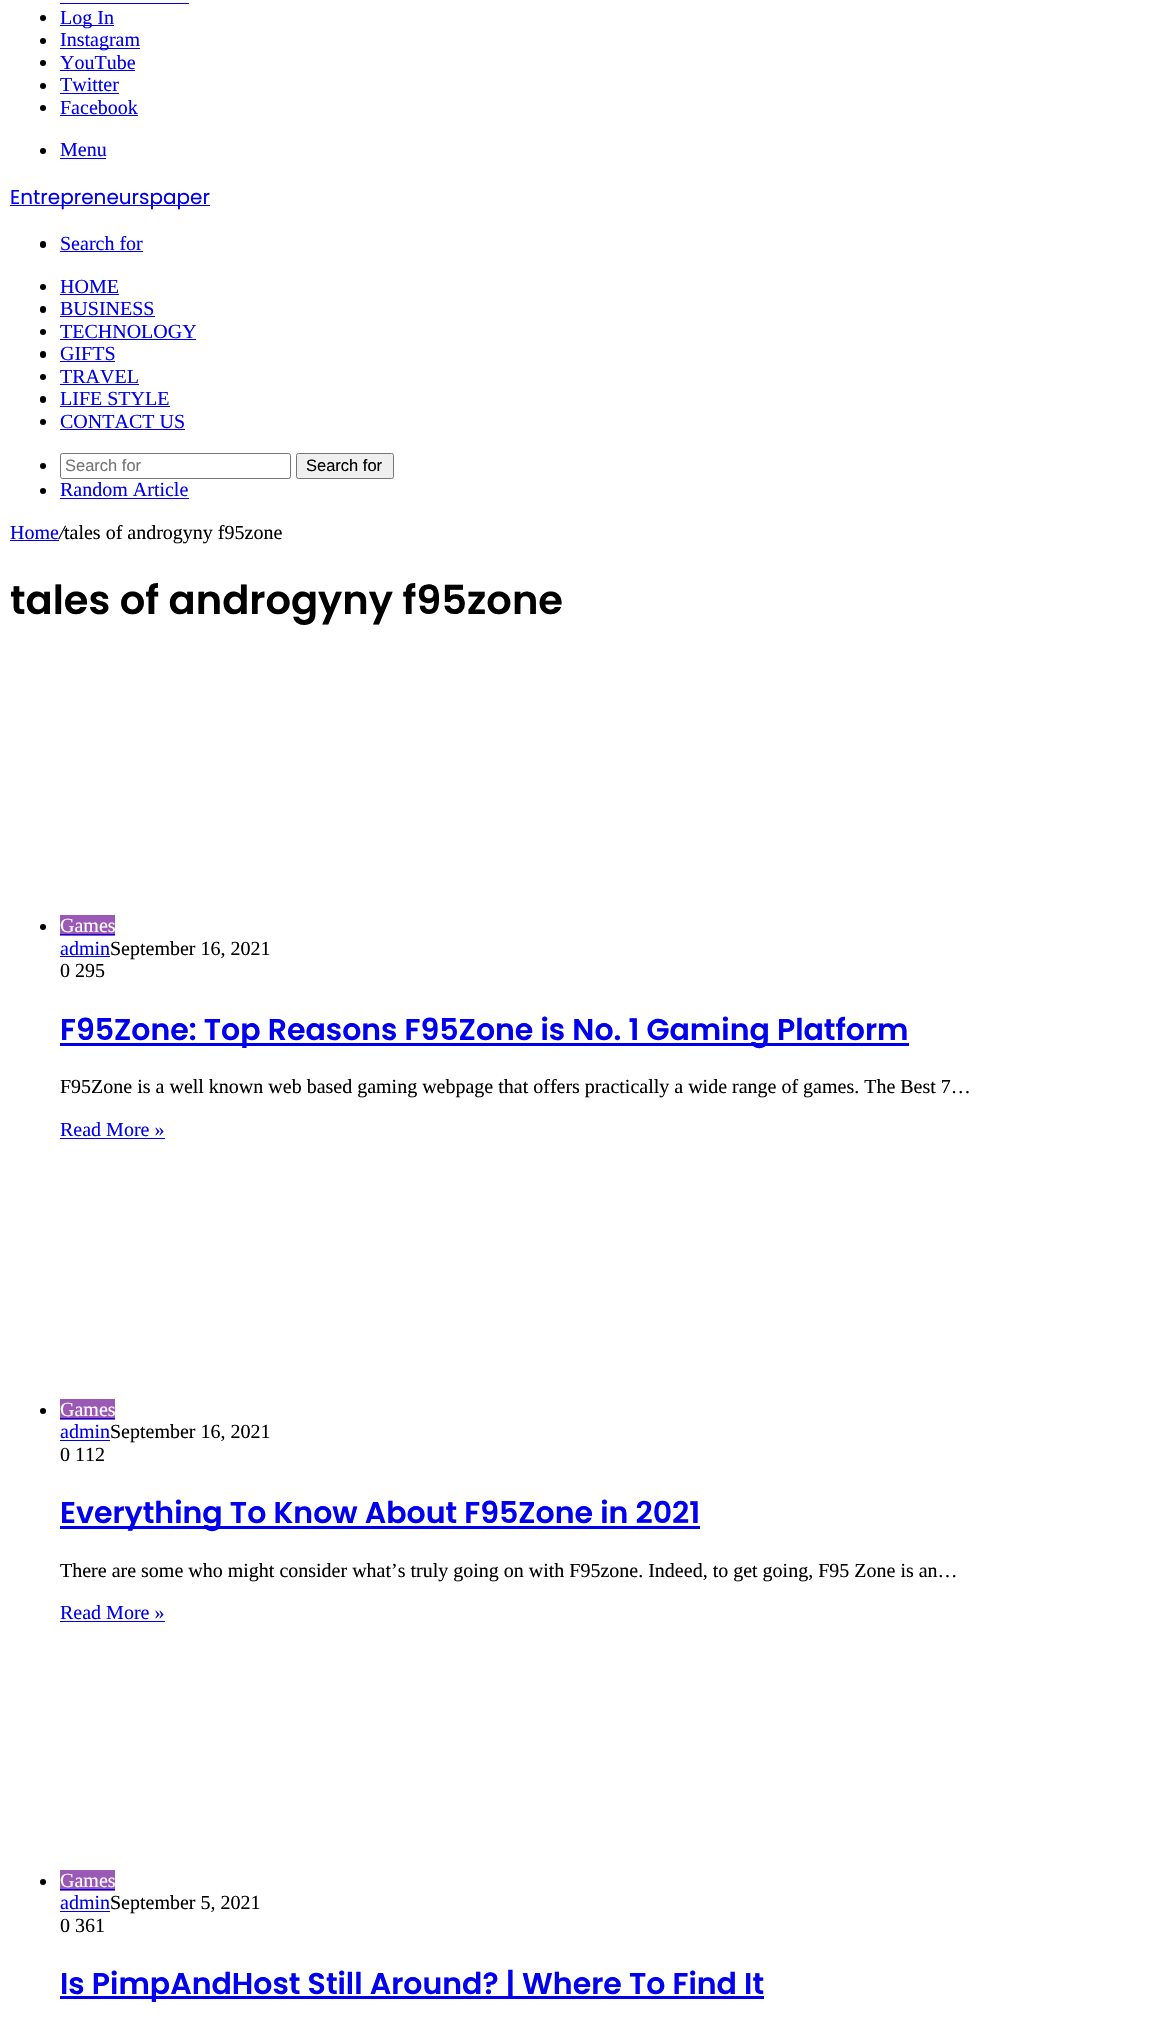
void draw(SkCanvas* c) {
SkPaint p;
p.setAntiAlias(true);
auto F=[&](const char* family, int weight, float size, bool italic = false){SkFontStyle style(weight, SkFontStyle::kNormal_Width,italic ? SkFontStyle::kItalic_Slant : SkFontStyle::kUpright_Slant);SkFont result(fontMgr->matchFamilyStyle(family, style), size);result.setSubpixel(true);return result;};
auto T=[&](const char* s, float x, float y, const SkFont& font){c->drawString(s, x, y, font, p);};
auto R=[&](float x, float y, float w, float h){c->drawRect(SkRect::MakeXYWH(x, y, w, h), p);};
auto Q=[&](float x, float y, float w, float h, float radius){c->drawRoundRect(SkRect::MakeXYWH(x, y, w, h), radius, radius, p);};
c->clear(0xffffffff);
p.setColor(0xff0000ee);
R(60,3,129,1);
p.setColor(0xff000000);
c->drawCircle(43,18,3,p);
p.setColor(0xff0000ee);
R(60,25,54,1);
auto f1 = F("Liberation Serif",400,20);
T("Log In",60,24,f1);
p.setColor(0xff000000);
c->drawCircle(43,41,3,p);
p.setColor(0xff0000ee);
R(60,48,80,1);
T("Instagram",60,46,f1);
p.setColor(0xff000000);
c->drawCircle(43,63,3,p);
p.setColor(0xff0000ee);
T("YouTube",60,69,f1);
R(60,70,75,1);
p.setColor(0xff000000);
c->drawCircle(43,86,3,p);
p.setColor(0xff0000ee);
T("Twitter",60,91,f1);
R(60,93,59,1);
p.setColor(0xff000000);
c->drawCircle(43,108,3,p);
p.setColor(0xff0000ee);
T("Facebook",60,114,f1);
R(60,115,78,1);
p.setColor(0xff000000);
c->drawCircle(43,151,3,p);
p.setColor(0xff0000ee);
T("Menu",60,156,f1);
R(60,158,46,1);
R(10,205,200,1);
auto f2 = F("Poppins",400,20);
T("Entrepreneurspaper",10,204,f2);
p.setColor(0xff000000);
Q(40,241,6,7,3);
p.setColor(0xff0000ee);
T("Search for",60,250,f1);
R(60,251,83,1);
p.setColor(0xff000000);
c->drawCircle(43,287,3,p);
p.setColor(0xff0000ee);
T("HOME",60,293,f1);
R(60,294,59,1);
p.setColor(0xff000000);
Q(40,306,6,7,3);
p.setColor(0xff0000ee);
T("BUSINESS",60,315,f1);
R(60,316,95,1);
p.setColor(0xff000000);
c->drawCircle(43,332,3,p);
p.setColor(0xff0000ee);
T("TECHNOLOGY",60,338,f1);
R(60,339,136,1);
p.setColor(0xff000000);
Q(40,351,6,7,3);
p.setColor(0xff0000ee);
T("GIFTS",60,360,f1);
R(60,361,55,1);
p.setColor(0xff000000);
c->drawCircle(43,377,3,p);
p.setColor(0xff0000ee);
T("TRAVEL",60,383,f1);
R(60,384,79,1);
p.setColor(0xff000000);
Q(40,396,6,7,3);
p.setColor(0xff0000ee);
T("LIFE STYLE",60,405,f1);
R(60,406,110,1);
p.setColor(0xff000000);
c->drawCircle(43,422,3,p);
p.setColor(0xff0000ee);
T("CONTACT US",60,428,f1);
R(60,429,125,1);
p.setColor(0xff000000);
c->drawCircle(43,466,3,p);
p.setStroke(true);
p.setStrokeWidth(1);
p.setColor(0xff767676);
c->drawRoundRect(SkRect::MakeXYWH(60.5,453.5,230,25),2,2,p);
auto f3 = F("Liberation Sans",400,16.5);
p.setStroke(false);
p.setColor(0xff757575);
T("Search for",65,471,f3);
p.setColor(0xffefefef);
c->drawRoundRect(SkRect::MakeXYWH(296.5,453.5,97,25),2,2,p);
p.setStroke(true);
p.setColor(0xff767676);
c->drawRoundRect(SkRect::MakeXYWH(296.5,453.5,97,25),2,2,p);
p.setStroke(false);
p.setColor(0xff000000);
T("Search for",306,471,f3);
c->drawCircle(43,491,3,p);
p.setColor(0xff0000ee);
T("Random Article",60,496,f1);
R(60,498,129,1);
T("Home",10,539,f1);
R(10,540,49,1);
auto f4 = F("Liberation Serif",400,20,true);
p.setColor(0xff000000);
T("/",59,539,f4);
T("tales of androgyny f95zone",64,539,f1);
auto f5 = F("Poppins",600,40);
T("tales of androgyny f95zone",10,614,f5);
c->drawCircle(43,927,3,p);
p.setColor(0xff9b59b6);
R(60,915,55,21);
p.setColor(0xffffffff);
T("Games",60,932,f1);
p.setColor(0xff0000ee);
R(60,934,55,1);
T("admin",60,955,f1);
R(60,956,50,1);
p.setColor(0xff000000);
T("September 16, 2021",110,955,f1);
T("0 295",60,977,f1);
p.setColor(0xff0000ee);
R(60,1043,849,3);
auto f6 = F("Poppins",600,30);
T("F95Zone: Top Reasons F95Zone is No. 1 Gaming Platform",60,1040,f6);
p.setColor(0xff000000);
T("F95Zone is a well known web based gaming webpage that offers practically a wide range of games. The Best 7…",60,1093,f1);
p.setColor(0xff0000ee);
T("Read More »",60,1136,f1);
R(60,1138,105,1);
p.setColor(0xff000000);
c->drawCircle(43,1411,3,p);
p.setColor(0xff9b59b6);
R(60,1399,55,21);
p.setColor(0xffffffff);
T("Games",60,1416,f1);
p.setColor(0xff0000ee);
R(60,1418,55,1);
T("admin",60,1438,f1);
R(60,1440,50,1);
p.setColor(0xff000000);
T("September 16, 2021",110,1438,f1);
T("0 112",60,1461,f1);
p.setColor(0xff0000ee);
R(60,1526,640,3);
T("Everything To Know About F95Zone in 2021",60,1523,f6);
p.setColor(0xff000000);
T("There are some who might consider what’s truly going on with F95zone. Indeed, to get going, F95 Zone is an…",60,1577,f1);
p.setColor(0xff0000ee);
T("Read More »",60,1619,f1);
R(60,1621,105,1);
p.setColor(0xff000000);
c->drawCircle(43,1882,3,p);
p.setColor(0xff9b59b6);
R(60,1870,55,21);
p.setColor(0xffffffff);
T("Games",60,1887,f1);
p.setColor(0xff0000ee);
R(60,1889,55,1);
T("admin",60,1909,f1);
R(60,1911,50,1);
p.setColor(0xff000000);
T("September 5, 2021",110,1909,f1);
T("0 361",60,1932,f1);
p.setColor(0xff0000ee);
R(60,1996,704,3);
T("Is PimpAndHost Still Around? | Where To Find It",60,1994,f6);
}
